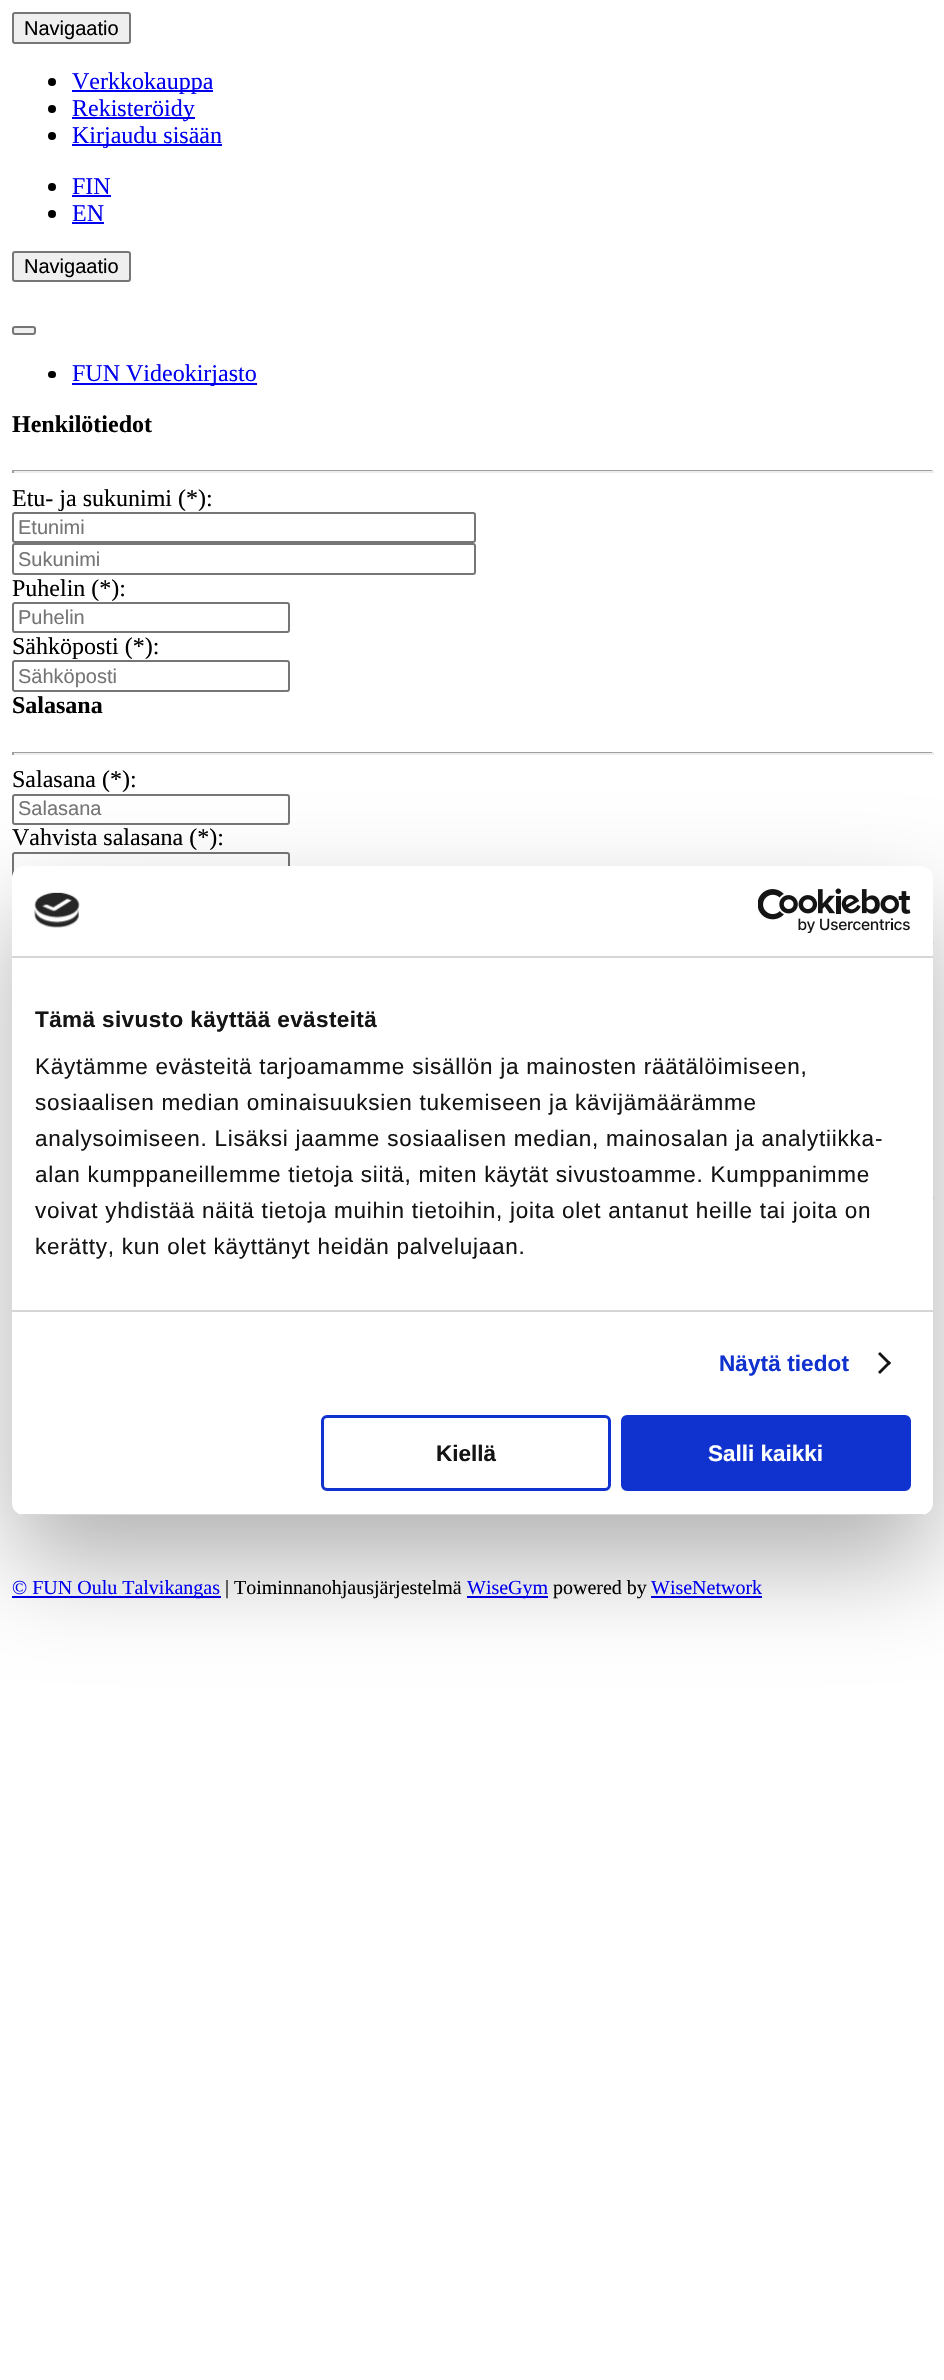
void draw(SkCanvas* c) {
SkPaint p;
p.setAntiAlias(true);
auto F=[&](const char* family, int weight, float size, bool italic = false){SkFontStyle style(weight, SkFontStyle::kNormal_Width,italic ? SkFontStyle::kItalic_Slant : SkFontStyle::kUpright_Slant);SkFont result(fontMgr->matchFamilyStyle(family, style), size);result.setSubpixel(true);return result;};
auto T=[&](const char* s, float x, float y, const SkFont& font){c->drawString(s, x, y, font, p);};
auto L=[&](const char* s, float x, float y, const SkFont& font, const SkPaint& ink, float letter, float word){std::vector<SkGlyphID> glyphs(font.countText(s, strlen(s), SkTextEncoding::kUTF8));std::vector<float> xs(glyphs.size());font.textToGlyphs(s, strlen(s), SkTextEncoding::kUTF8, glyphs);font.getXPos(glyphs, xs, x);float extra = 0;for (size_t i = 0; i < glyphs.size(); i++) {xs[i] += extra;extra += letter + word * (glyphs[i] == font.unicharToGlyph(' '));}c->drawTextBlob(SkTextBlob::MakeFromPosHGlyphs(glyphs, xs, y, font), 0, 0, ink);};
auto R=[&](float x, float y, float w, float h){c->drawRect(SkRect::MakeXYWH(x, y, w, h), p);};
auto Q=[&](float x, float y, float w, float h, float radius){c->drawRoundRect(SkRect::MakeXYWH(x, y, w, h), radius, radius, p);};
auto I=[&](const char* path, float x, float y, float w, float h){auto image = SkImages::DeferredFromEncodedData(SkData::MakeFromFileName(path));c->drawImageRect(image, SkRect::MakeXYWH(x, y, w, h), SkSamplingOptions());};
auto P=[&](const char* data, bool evenOdd = false){SkPath result = *SkParsePath::FromSVGString(data);if (evenOdd) result.setFillType(SkPathFillType::kEvenOdd);return result;};
c->clear(0xffffffff);
p.setColor(0xffefefef);
c->drawRoundRect(SkRect::MakeXYWH(13,13,117,30),2,2,p);
p.setStroke(true);
p.setStrokeWidth(2);
p.setColor(0xff767676);
c->drawRoundRect(SkRect::MakeXYWH(13,13,117,30),2,2,p);
auto f1 = F("Liberation Sans",400,20);
p.setStroke(false);
p.setColor(0xff000000);
T("Navigaatio",24,35,f1);
c->drawCircle(52,82,4,p);
p.setColor(0xff0000ee);
R(72,90,141,2);
auto f2 = F("Liberation Serif",400,24);
T("Verkkokauppa",72,89,f2);
p.setColor(0xff000000);
c->drawCircle(52,109,4,p);
p.setColor(0xff0000ee);
R(72,117,123,2);
T("Rekisteröidy",72,116,f2);
p.setColor(0xff000000);
c->drawCircle(52,136,4,p);
p.setColor(0xff0000ee);
R(72,144,150,2);
T("Kirjaudu sisään",72,143,f2);
p.setColor(0xff000000);
c->drawCircle(52,187,4,p);
p.setColor(0xff0000ee);
T("FIN",72,194,f2);
R(72,195,39,2);
p.setColor(0xff000000);
c->drawCircle(52,214,4,p);
p.setColor(0xff0000ee);
T("EN",72,221,f2);
R(72,222,32,2);
p.setColor(0xffefefef);
c->drawRoundRect(SkRect::MakeXYWH(13,252,117,29),2,2,p);
p.setStroke(true);
p.setColor(0xff767676);
c->drawRoundRect(SkRect::MakeXYWH(13,252,117,29),2,2,p);
p.setStroke(false);
p.setColor(0xff000000);
T("Navigaatio",24,273,f1);
p.setColor(0xffefefef);
c->drawRoundRect(SkRect::MakeXYWH(13,327,22,7),2,2,p);
p.setStroke(true);
p.setColor(0xff767676);
c->drawRoundRect(SkRect::MakeXYWH(13,327,22,7),2,2,p);
p.setStroke(false);
p.setColor(0xff000000);
Q(48,371,8,7,3.5);
p.setColor(0xff0000ee);
R(72,383,185,2);
T("FUN Videokirjasto",72,381,f2);
auto f3 = F("Liberation Serif",700,24);
p.setColor(0xff000000);
T("Henkilötiedot",12,432,f3);
p.setColor(0xff9f9f9f);
R(12,470,921,1);
p.setColor(0xffeeeeee);
R(932,470,2,3);
R(12,471,921,2);
p.setColor(0xff9f9f9f);
R(12,470,2,3);
p.setColor(0xff000000);
T("Etu- ja sukunimi (*):",12,506,f2);
p.setStroke(true);
p.setColor(0xff767676);
c->drawRoundRect(SkRect::MakeXYWH(13,513,462,29),2,2,p);
p.setStroke(false);
p.setColor(0xff757575);
T("Etunimi",18,534,f1);
p.setStroke(true);
p.setColor(0xff767676);
c->drawRoundRect(SkRect::MakeXYWH(13,544,462,30),2,2,p);
p.setStroke(false);
p.setColor(0xff757575);
T("Sukunimi",18,566,f1);
p.setColor(0xff000000);
T("Puhelin (*):",12,596,f2);
p.setStroke(true);
p.setColor(0xff767676);
c->drawRoundRect(SkRect::MakeXYWH(13,603,276,29),2,2,p);
p.setStroke(false);
p.setColor(0xff757575);
T("Puhelin",18,624,f1);
p.setColor(0xff000000);
T("Sähköposti (*):",12,654,f2);
p.setStroke(true);
p.setColor(0xff767676);
c->drawRoundRect(SkRect::MakeXYWH(13,661,276,30),2,2,p);
p.setStroke(false);
p.setColor(0xff757575);
T("Sähköposti",18,683,f1);
p.setColor(0xff000000);
T("Salasana",12,713,f3);
p.setColor(0xff9f9f9f);
R(12,752,921,1);
p.setColor(0xffeeeeee);
R(932,752,2,3);
R(12,753,921,2);
p.setColor(0xff9f9f9f);
R(12,752,2,3);
p.setColor(0xff000000);
T("Salasana (*):",12,787,f2);
p.setStroke(true);
p.setColor(0xff767676);
c->drawRoundRect(SkRect::MakeXYWH(13,795,276,29),2,2,p);
p.setStroke(false);
p.setColor(0xff757575);
T("Salasana",18,815,f1);
p.setColor(0xff000000);
T("Vahvista salasana (*):",12,845,f2);
p.setStroke(true);
p.setColor(0xff767676);
c->drawRoundRect(SkRect::MakeXYWH(13,853,276,30),2,2,p);
p.setStroke(false);
p.setColor(0xffeeeeee);
R(933,942,1,3);
R(933,1196,1,3);
p.setColor(0xff0000ee);
R(12,1596,209,2);
R(467,1596,81,2);
R(651,1596,111,2);
p.setColor(0x4d000000);
p.setMaskFilter(SkMaskFilter::MakeBlur(kNormal_SkBlurStyle, 51));
c->drawRoundRect(SkRect::MakeXYWH(12,914,921,649),12,12,p);
p.setMaskFilter(nullptr);
p.setColor(0xffffffff);
Q(12,866,921,649,12);
p.setColor(0xffd6d6d6);
R(12,956,921,2);
I("1.png",34,892,46,36);
I("2.png",758,888,153,45);
R(12,1310,921,2);
auto f4 = F("Liberation Sans",700,22.5);
p.setColor(0xff141414);
L("Tämä sivusto käyttää evästeitä",35,1027,f4,p,.4,0);
auto f5 = F("Liberation Sans",400,22.5);
L("Käytämme evästeitä tarjoamamme sisällön ja mainosten räätälöimiseen,",35,1074,f5,p,.75,0);
L("sosiaalisen median ominaisuuksien tukemiseen ja kävijämäärämme",35,1110,f5,p,.75,0);
L("analysoimiseen. Lisäksi jaamme sosiaalisen median, mainosalan ja analytiikka-",35,1146,f5,p,.75,0);
L("alan kumppaneillemme tietoja siitä, miten käytät sivustoamme. Kumppanimme",35,1182,f5,p,.75,0);
L("voivat yhdistää näitä tietoja muihin tietoihin, joita olet antanut heille tai joita on",35,1218,f5,p,.75,0);
L("kerätty, kun olet käyttänyt heidän palvelujaan.",35,1254,f5,p,.75,0);
p.setColor(0xff1032cf);
L("Näytä tiedot",719,1371,f4,p,.1,0);
p.setColor(0xff141414);
c->drawPath(P("M880 1352l11 11l-2 2l-11-11z"),p);
c->drawPath(P("M889 1361l2 2l-11 11l-2-2z"),p);
c->save();
c->clipPath(P("M24 866h897c6.5 0 12 5.5 12 12v625c0 6.5-5.5 12-12 12h-897c-6.5 0-12-5.5-12-12v-625c0-6.5 5.5-12 12-12z"),true);
p.setColor(0xffd6d6d6);
R(12,1514,921,1);
c->restore();
p.setStroke(true);
p.setStrokeWidth(3);
p.setColor(0xff1032cf);
c->drawRoundRect(SkRect::MakeXYWH(322.5,1416.5,287,73),4.5,4.5,p);
p.setStroke(false);
p.setColor(0xff141414);
T("Kiellä",436,1461,f4);
p.setColor(0xff1032cf);
c->drawRoundRect(SkRect::MakeXYWH(622.5,1416.5,287,73),4.5,4.5,p);
p.setStroke(true);
c->drawRoundRect(SkRect::MakeXYWH(622.5,1416.5,287,73),4.5,4.5,p);
p.setStroke(false);
p.setColor(0xffffffff);
T("Salli kaikki",708,1461,f4);
auto f6 = F("Liberation Serif",400,20);
p.setColor(0xff0000ee);
T("© FUN Oulu Talvikangas",12,1594,f6);
p.setColor(0xff000000);
T("| Toiminnanohjausjärjestelmä",225,1594,f6);
p.setColor(0xff0000ee);
T("WiseGym",467,1594,f6);
p.setColor(0xff000000);
T("powered by",553,1594,f6);
p.setColor(0xff0000ee);
T("WiseNetwork",651,1594,f6);
}
